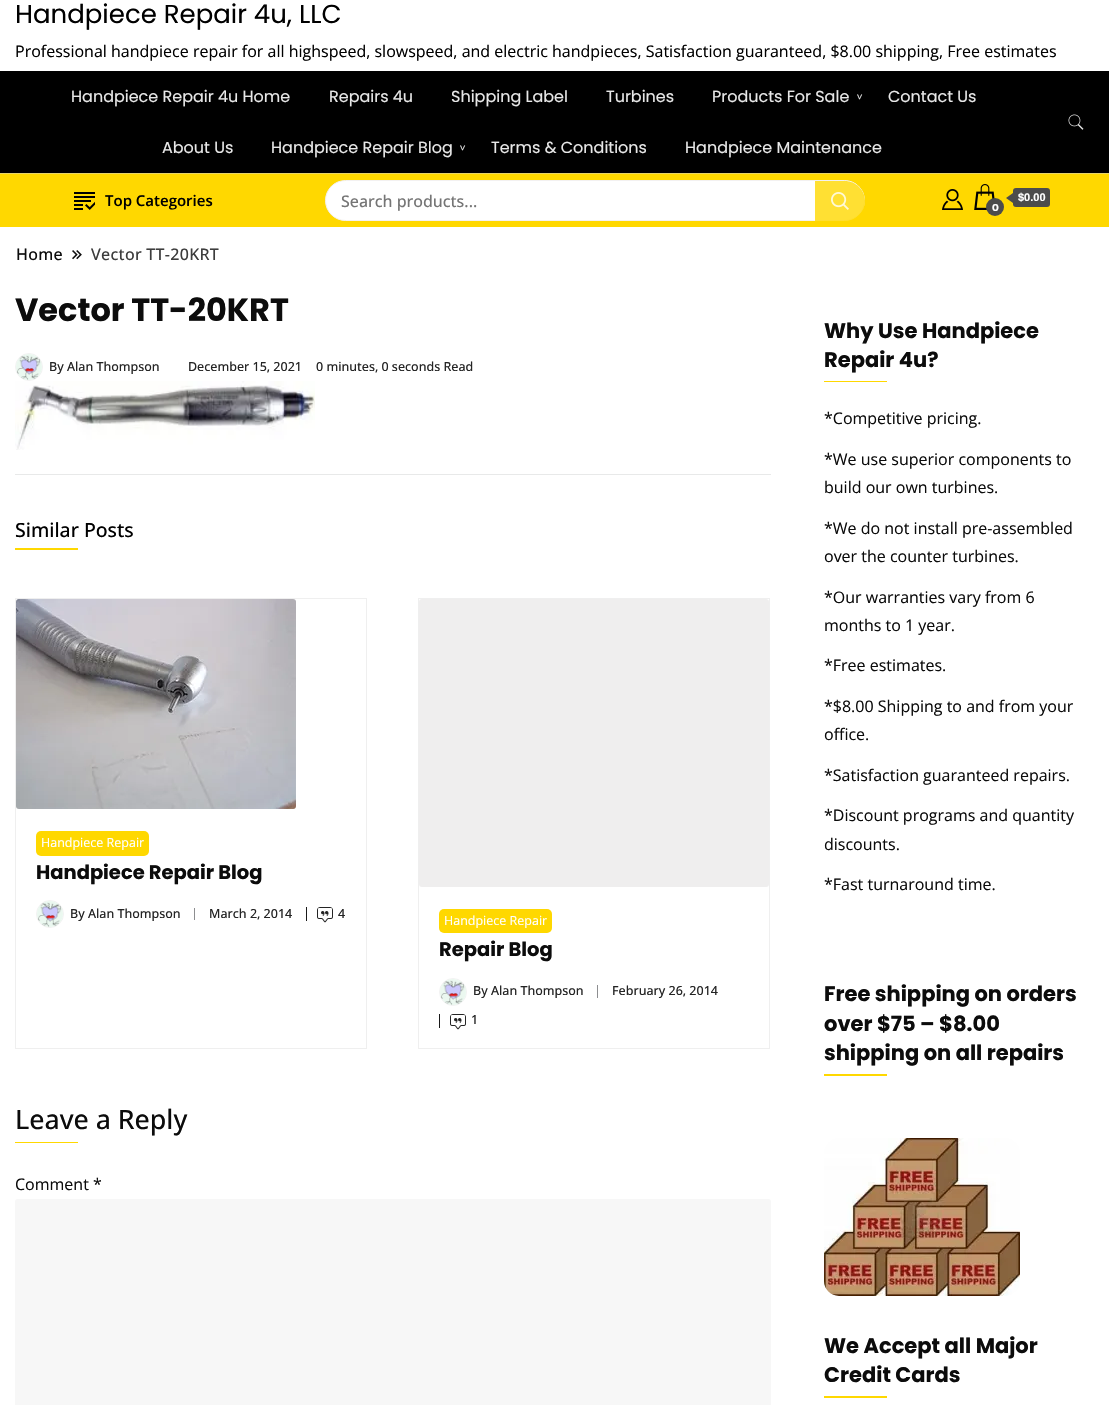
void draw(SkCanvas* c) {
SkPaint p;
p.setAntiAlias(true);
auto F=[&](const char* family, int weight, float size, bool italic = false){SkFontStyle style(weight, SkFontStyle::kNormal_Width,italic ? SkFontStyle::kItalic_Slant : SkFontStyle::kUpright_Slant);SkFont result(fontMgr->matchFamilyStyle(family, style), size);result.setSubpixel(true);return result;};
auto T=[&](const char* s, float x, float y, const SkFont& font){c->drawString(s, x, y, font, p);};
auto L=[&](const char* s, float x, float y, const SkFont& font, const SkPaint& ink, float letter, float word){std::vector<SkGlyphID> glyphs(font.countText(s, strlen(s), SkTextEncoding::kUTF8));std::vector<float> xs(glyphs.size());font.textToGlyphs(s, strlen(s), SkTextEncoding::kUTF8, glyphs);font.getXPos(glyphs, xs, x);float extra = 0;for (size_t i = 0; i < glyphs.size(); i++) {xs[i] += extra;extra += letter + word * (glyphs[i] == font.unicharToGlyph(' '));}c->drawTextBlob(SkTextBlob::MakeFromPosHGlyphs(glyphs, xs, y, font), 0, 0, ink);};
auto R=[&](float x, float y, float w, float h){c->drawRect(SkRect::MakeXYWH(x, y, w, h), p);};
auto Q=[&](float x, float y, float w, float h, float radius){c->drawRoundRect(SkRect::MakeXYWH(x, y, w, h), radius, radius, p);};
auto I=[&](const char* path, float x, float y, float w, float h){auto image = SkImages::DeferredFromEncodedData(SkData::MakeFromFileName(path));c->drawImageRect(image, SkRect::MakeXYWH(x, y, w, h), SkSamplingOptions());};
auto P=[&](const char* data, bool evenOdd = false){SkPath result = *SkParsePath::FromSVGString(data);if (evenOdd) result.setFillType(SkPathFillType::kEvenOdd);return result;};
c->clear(0xffffffff);
auto f1 = F("Poppins",400,26);
p.setColor(0xff000000);
T("Handpiece Repair 4u, LLC",15,23,f1);
auto f2 = F("Open Sans",400,16);
T("Professional handpiece repair for all highspeed, slowspeed, and electric handpieces, Satisfaction guaranteed, $8.00 shipping, Free estimates",15,57,f2);
R(0,71,1109,102);
auto f3 = F("Poppins",400,16);
p.setColor(0xffe8e8e8);
T("Handpiece Repair 4u Home",71,102,f3);
T("Repairs 4u",329,102,f3);
T("Shipping Label",451,102,f3);
T("Turbines",606,102,f3);
T("Products For Sale",712,102,f3);
auto f4 = F("Open Sans",500,10);
c->save();
c->rotate(90,856,94);
T(">",856,94,f4);
c->restore();
T("Contact Us",888,102,f3);
T("About Us",162,153,f3);
T("Handpiece Repair Blog",271,153,f3);
c->save();
c->rotate(90,459,145);
T(">",459,145,f4);
c->restore();
T("Terms & Conditions",491,153,f3);
T("Handpiece Maintenance",685,153,f3);
I("1.png",1068,114,16,16);
p.setColor(0xffffd800);
R(0,174,1109,53);
p.setColor(0xffe8d56a);
R(0,173,1109,1);
I("2.png",74,192,21,18);
auto f5 = F("Open Sans",600,15);
p.setColor(0xff000000);
T("Top Categories",105,206,f5);
p.setColor(0xffffffff);
c->drawRoundRect(SkRect::MakeXYWH(325.5,180.5,539,40),20,20,p);
p.setStroke(true);
p.setStrokeWidth(1);
p.setColor(0xfff3f1f1);
c->drawRoundRect(SkRect::MakeXYWH(325.5,180.5,539,40),20,20,p);
auto f6 = F("Open Sans",500,16);
p.setStroke(false);
p.setColor(0xff757575);
T("Search products...",341,207,f6);
p.setColor(0xccffd800);
c->drawPath(P("M815 181h29.5c11.5 0 20.5 9 20.5 20.5c0 11.5-9 20.5-20.5 20.5h-29.5z"),p);
I("3.png",831,192,18,18);
I("4.png",942,189,21,21);
I("5.png",974,184,21,26);
p.setColor(0xff4c4c4c);
Q(1013,188,37,19,3);
c->drawPath(P("M1013 193v10l-7-5z"),p);
auto f7 = F("Liberation Sans",700,11);
p.setColor(0xffffffff);
T("$0.00",1018,201,f7);
p.setColor(0xff4c4c4c);
c->drawCircle(995,207,9,p);
auto f8 = F("Montserrat",700,10);
p.setColor(0xffffffff);
T("0",992,211,f8);
p.setColor(0xff0c0c0c);
L("Home",16,260,f6,p,.3,0);
I("6.png",72,250,10,10);
p.setColor(0xff3d3d3d);
L("Vector TT-20KRT",91,260,f6,p,.3,0);
auto f9 = F("Poppins",700,32);
p.setColor(0xff0c0c0c);
T("Vector TT-20KRT",15,321,f9);
p.setStroke(true);
p.setColor(0xfff2f2f2);
c->drawCircle(29,367,13.5,p);
I("7.png",16,354,26,26);
auto f10 = F("Open Sans",500,12.5);
p.setStroke(false);
p.setColor(0xff242424);
T("By Alan Thompson",49,371,f10);
T("December 15, 2021",188,371,f10);
T("0 minutes, 0 seconds Read",316,371,f10);
I("8.png",15,381,300,69);
p.setColor(0xffe8e9e9);
R(15,474,756,1);
auto f11 = F("Open Sans",500,19.5);
p.setColor(0xff000000);
T("Similar Posts",15,537,f11);
p.setColor(0xffffd800);
R(15,548,63,2);
p.setStroke(true);
p.setColor(0xffefefef);
c->drawRect(SkRect::MakeXYWH(15.5,598.5,351,450),p);
I("9.png",16,599,280,210);
p.setStroke(false);
p.setColor(0xffffd800);
Q(36,831,113,25,5);
auto f12 = F("Open Sans",400,12.5);
p.setColor(0xffffffff);
T("Handpiece Repair",41,847,f12);
auto f13 = F("Poppins",700,19.5);
p.setColor(0xff0c0c0c);
T("Handpiece Repair Blog",36,879,f13);
p.setStroke(true);
p.setColor(0xfff2f2f2);
c->drawCircle(50,914,13.5,p);
I("7.png",37,901,26,26);
p.setStroke(false);
p.setColor(0xff8d8e90);
R(194,908,1,12);
p.setColor(0xff242424);
T("By Alan Thompson",70,918,f10);
T("March 2, 2014",209,918,f10);
p.setColor(0xff1a1a1a);
R(306,907,1,14);
I("10.png",317,907,16,16);
p.setColor(0xff242424);
T("4",338,918,f10);
p.setStroke(true);
p.setColor(0xffefefef);
c->drawRect(SkRect::MakeXYWH(418.5,598.5,351,450),p);
p.setStroke(false);
p.setColor(0xffefeeee);
Q(419,599,350,288,3);
p.setColor(0xffffd800);
Q(439,909,113,24,5);
p.setColor(0xffffffff);
T("Handpiece Repair",444,925,f12);
p.setColor(0xff0c0c0c);
T("Repair Blog",439,956,f13);
p.setStroke(true);
p.setColor(0xfff2f2f2);
c->drawCircle(453,992,13.5,p);
I("7.png",440,979,26,26);
p.setStroke(false);
p.setColor(0xff8d8e90);
R(597,985,1,13);
p.setColor(0xff242424);
T("By Alan Thompson",473,995,f10);
T("February 26, 2014",612,995,f10);
p.setColor(0xff1a1a1a);
R(439,1014,1,14);
I("10.png",450,1014,16,16);
p.setColor(0xff242424);
T("1",471,1024,f10);
auto f14 = F("Open Sans",500,26.75);
p.setColor(0xff0c0c0c);
T("Leave a Reply",15,1129,f14);
p.setColor(0xffffd800);
R(15,1142,63,1);
p.setColor(0xff0c0c0c);
T("Comment *",15,1190,f2);
p.setColor(0xfff7f7f7);
Q(15,1199,756,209,3);
auto f15 = F("Poppins",700,21);
p.setColor(0xff0c0c0c);
T("Why Use Handpiece",824,338,f15);
T("Repair 4u?",824,367,f15);
p.setColor(0xffffd800);
R(824,381,63,1);
p.setColor(0xff0c0c0c);
T("*Competitive pricing.",824,424,f2);
T("*We use superior components to",824,465,f2);
T("build our own turbines.",824,493,f2);
T("*We do not install pre-assembled",824,534,f2);
T("over the counter turbines.",824,562,f2);
T("*Our warranties vary from 6",824,603,f2);
T("months to 1 year.",824,631,f2);
T("*Free estimates.",824,671,f2);
T("*$8.00 Shipping to and from your",824,712,f2);
T("office.",824,740,f2);
T("*Satisfaction guaranteed repairs.",824,781,f2);
T("*Discount programs and quantity",824,821,f2);
T("discounts.",824,850,f2);
T("*Fast turnaround time.",824,890,f2);
T("Free shipping on orders",824,1001,f15);
T("over $75 – $8.00",824,1031,f15);
T("shipping on all repairs",824,1060,f15);
p.setColor(0xffffd800);
R(824,1074,63,2);
I("11.png",824,1138,196,158);
p.setColor(0xff0c0c0c);
T("We Accept all Major",824,1353,f15);
T("Credit Cards",824,1382,f15);
p.setColor(0xffffd800);
R(824,1396,63,2);
}
